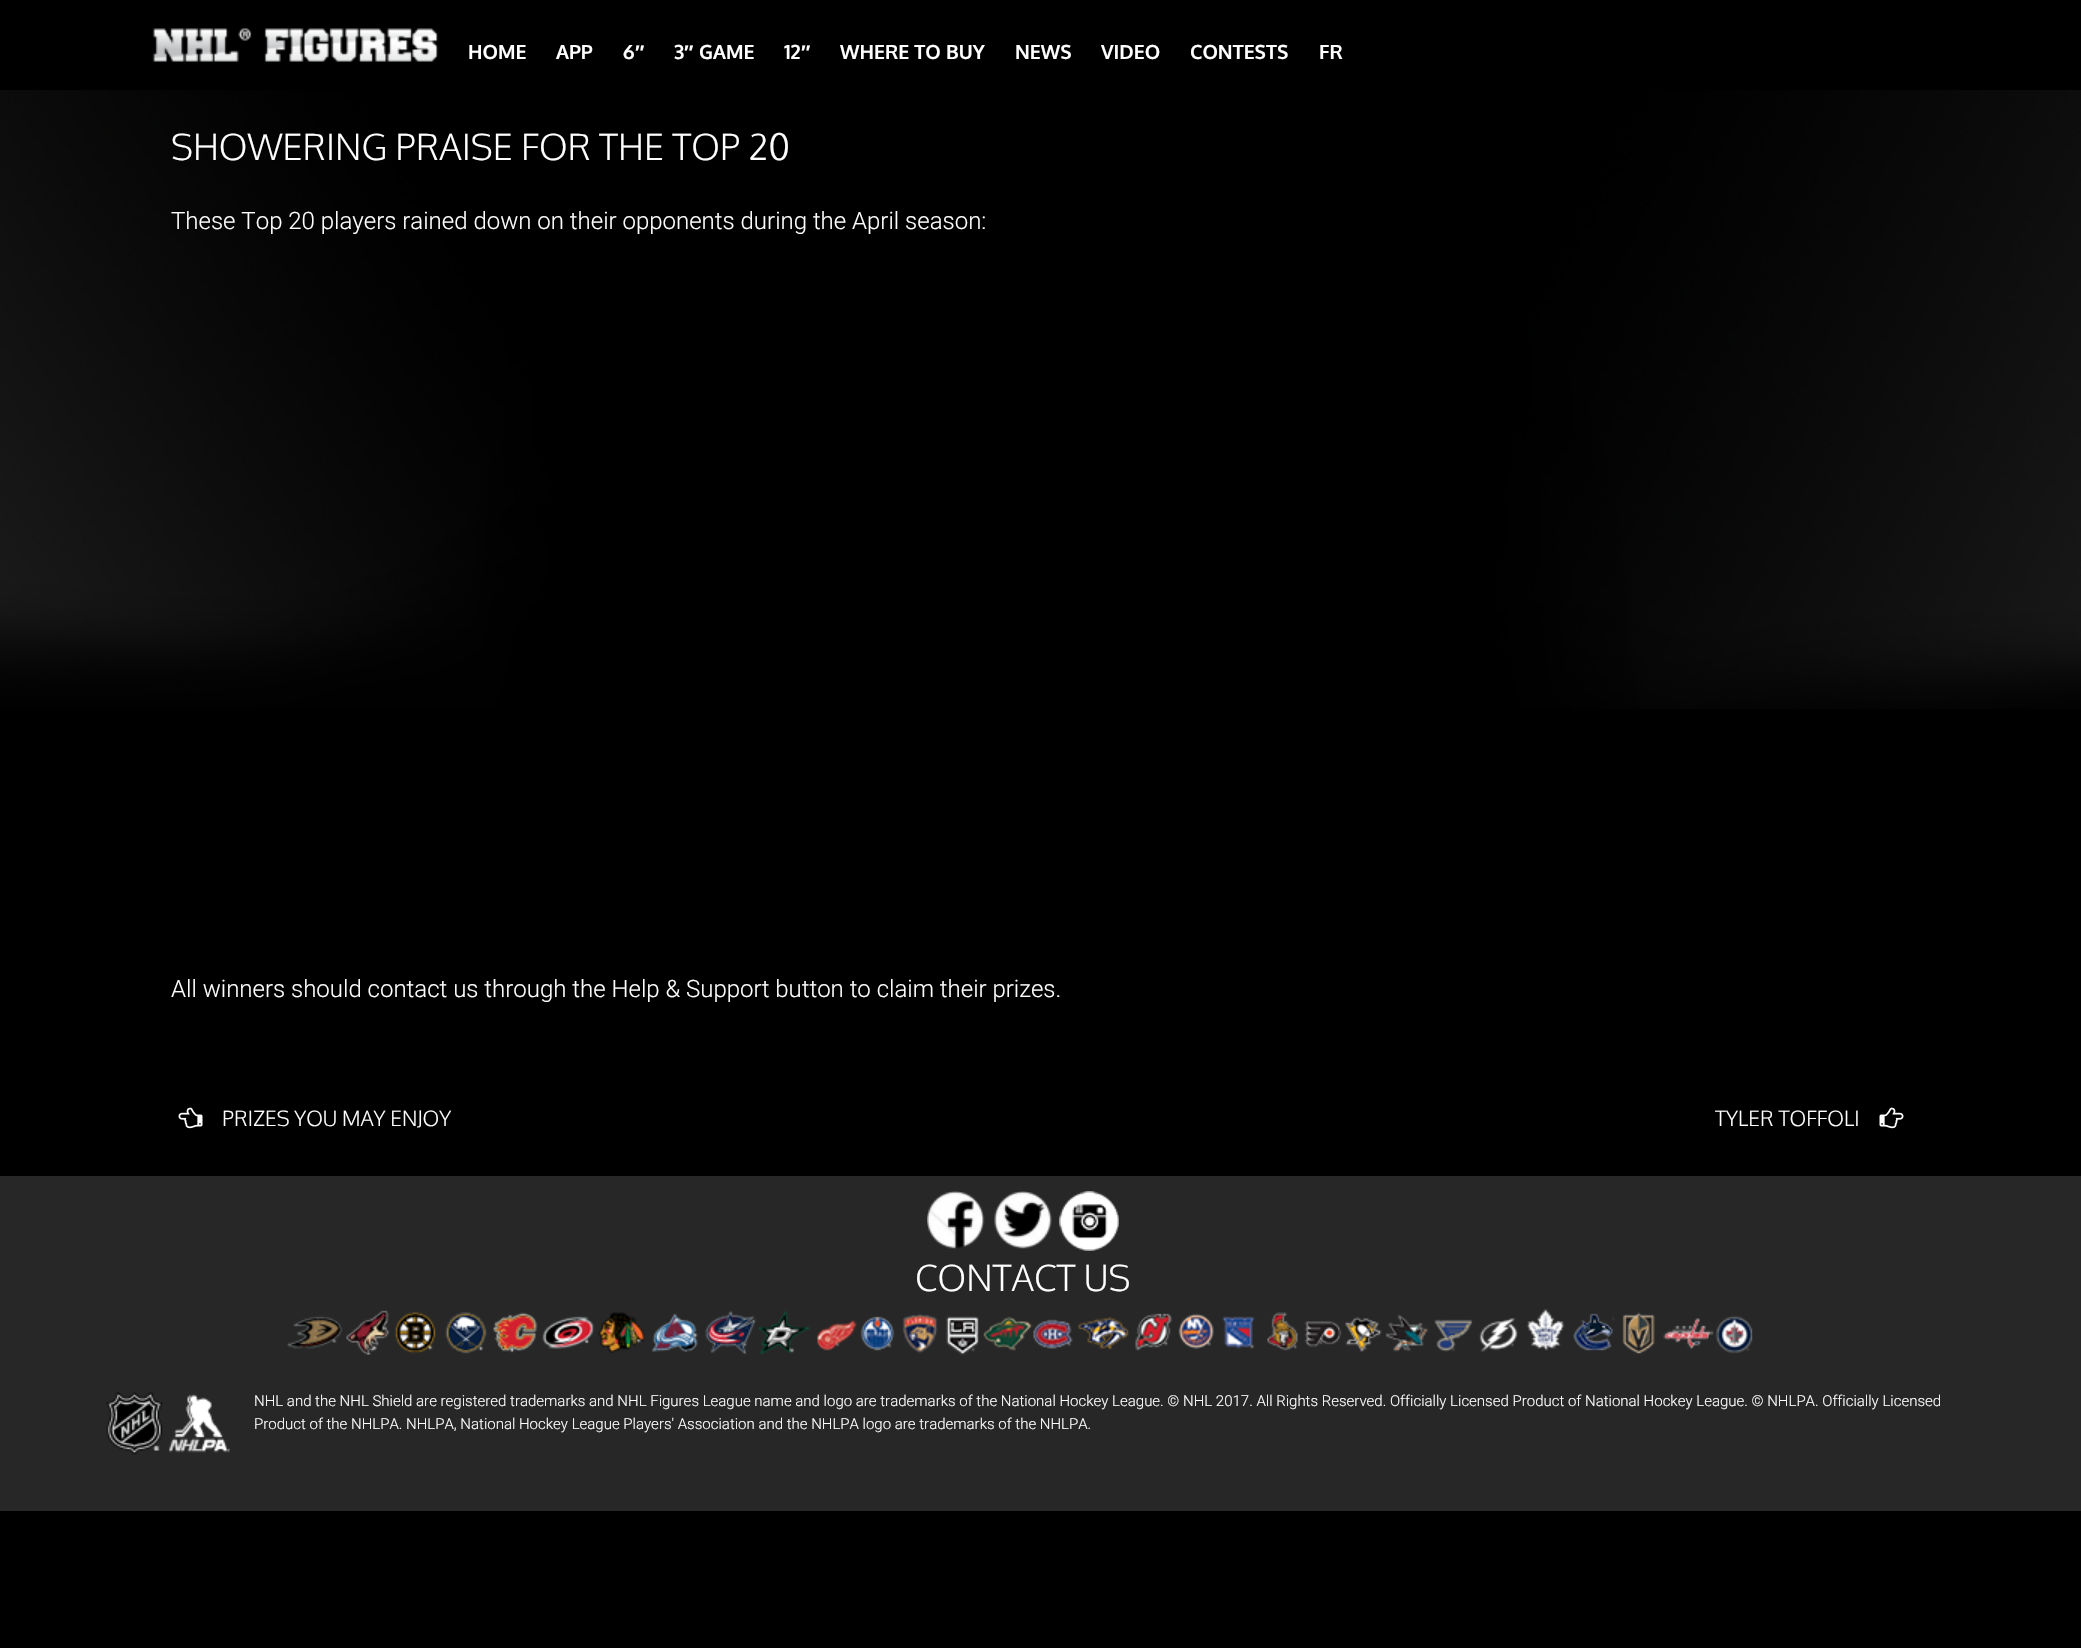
void draw(SkCanvas* c) {
SkPaint p;
p.setAntiAlias(true);
auto F=[&](const char* family, int weight, float size, bool italic = false){SkFontStyle style(weight, SkFontStyle::kNormal_Width,italic ? SkFontStyle::kItalic_Slant : SkFontStyle::kUpright_Slant);SkFont result(fontMgr->matchFamilyStyle(family, style), size);result.setSubpixel(true);return result;};
auto T=[&](const char* s, float x, float y, const SkFont& font){c->drawString(s, x, y, font, p);};
auto R=[&](float x, float y, float w, float h){c->drawRect(SkRect::MakeXYWH(x, y, w, h), p);};
auto I=[&](const char* path, float x, float y, float w, float h){auto image = SkImages::DeferredFromEncodedData(SkData::MakeFromFileName(path));c->drawImageRect(image, SkRect::MakeXYWH(x, y, w, h), SkSamplingOptions());};
c->clear(0xff000000);
I("1.png",0,90,2081,619);
I("2.png",152,28,287,34);
auto f1 = F("Oxygen",700,19.5);
p.setColor(0xffffffff);
T("HOME",468,59,f1);
T("APP",556,59,f1);
T("6",623,59,f1);
auto f2 = F("Liberation Sans",700,19.5);
T("″",635,59,f2);
T("3",674,59,f1);
T("″",684,59,f2);
T("GAME",699,59,f1);
T("12",784,59,f1);
T("″",801,59,f2);
T("WHERE TO BUY",840,59,f1);
T("NEWS",1015,59,f1);
T("VIDEO",1101,59,f1);
T("CONTESTS",1190,59,f1);
T("FR",1319,59,f1);
auto f3 = F("Oxygen",300,36);
T("SHOWERING PRAISE FOR THE TOP 20",171,160,f3);
auto f4 = F("Roboto",300,24);
T("These Top 20 players rained down on their opponents during the April season:",171,229,f4);
T("All winners should contact us through the Help & Support button to claim their prizes.",171,997,f4);
I("3.png",178,1107,25,22);
auto f5 = F("Oxygen",300,21);
T("PRIZES YOU MAY ENJOY",222,1126,f5);
T("TYLER TOFFOLI",1715,1126,f5);
I("4.png",1879,1107,25,22);
p.setColor(0xff272727);
R(0,1176,2081,335);
I("5.png",927,1191,58,58);
I("6.png",994,1191,58,58);
I("7.png",1059,1191,60,60);
p.setColor(0xffffffff);
T("CONTACT US",915,1291,f3);
I("8.png",287,1310,523,45);
I("9.png",817,1313,438,42);
I("10.png",1267,1309,486,45);
I("11.png",106,1392,124,63);
auto f6 = F("Roboto",300,15);
T("NHL and the NHL Shield are registered trademarks and NHL Figures League name and logo are trademarks of the National Hockey League. © NHL 2017. All Rights Reserved. Officially Licensed Product of National Hockey League. © NHLPA. Officially Licensed",254,1406,f6);
T("Product of the NHLPA. NHLPA, National Hockey League Players' Association and the NHLPA logo are trademarks of the NHLPA.",254,1429,f6);
}
